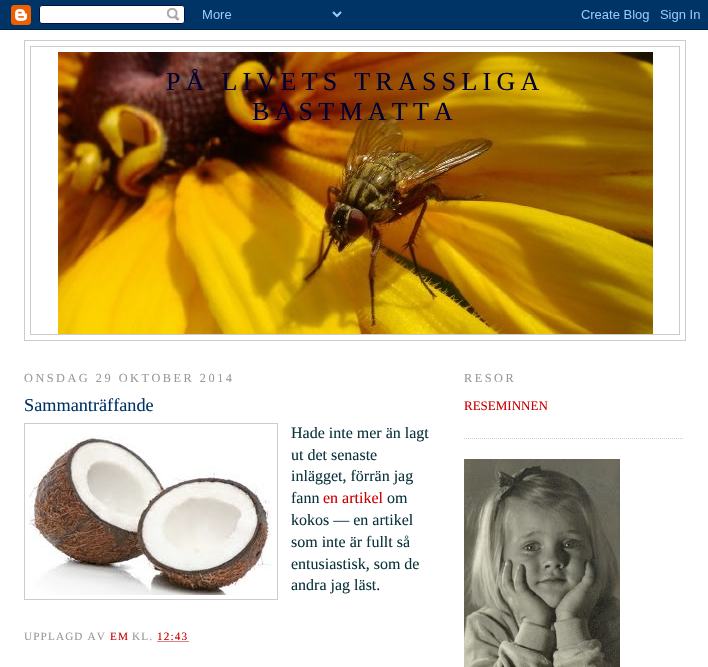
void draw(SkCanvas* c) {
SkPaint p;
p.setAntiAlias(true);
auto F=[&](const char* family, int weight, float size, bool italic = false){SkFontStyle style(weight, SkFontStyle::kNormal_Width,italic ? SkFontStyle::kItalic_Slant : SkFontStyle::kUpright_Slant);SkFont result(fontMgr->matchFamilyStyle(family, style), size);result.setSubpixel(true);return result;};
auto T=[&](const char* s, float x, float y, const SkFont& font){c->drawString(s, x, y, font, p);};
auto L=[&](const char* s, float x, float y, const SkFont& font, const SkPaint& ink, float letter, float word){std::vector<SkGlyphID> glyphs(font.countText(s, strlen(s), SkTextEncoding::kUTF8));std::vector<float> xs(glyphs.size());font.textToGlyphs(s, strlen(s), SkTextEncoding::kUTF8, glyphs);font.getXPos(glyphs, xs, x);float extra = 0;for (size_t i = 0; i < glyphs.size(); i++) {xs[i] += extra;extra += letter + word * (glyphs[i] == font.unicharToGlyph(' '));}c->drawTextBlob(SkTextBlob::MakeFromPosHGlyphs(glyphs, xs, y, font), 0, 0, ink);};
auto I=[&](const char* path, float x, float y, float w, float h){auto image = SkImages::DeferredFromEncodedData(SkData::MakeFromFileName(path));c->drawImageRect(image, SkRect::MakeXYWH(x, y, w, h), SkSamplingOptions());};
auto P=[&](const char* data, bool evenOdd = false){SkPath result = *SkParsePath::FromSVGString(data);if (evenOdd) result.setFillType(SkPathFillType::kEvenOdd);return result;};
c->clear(0xffffffff);
I("1.png",0,0,708,30);
p.setStroke(true);
p.setStrokeWidth(1);
p.setColor(0xffcccccc);
c->drawRect(SkRect::MakeXYWH(24.5,40.5,661,300),p);
c->drawRect(SkRect::MakeXYWH(30.5,46.5,649,288),p);
I("2.png",58,52,595,282);
auto f1 = F("Liberation Serif",400,26);
p.setStroke(false);
p.setColor(0xff000033);
L("PÅ LIVETS TRASSLIGA",166,90,f1,p,5.25,0);
L("BASTMATTA",252,120,f1,p,5.25,0);
auto f2 = F("Liberation Serif",400,12.3);
p.setColor(0xff999999);
L("ONSDAG 29 OKTOBER 2014",24,382,f2,p,2.5,0);
auto f3 = F("Liberation Serif",400,18.25);
p.setColor(0xff003366);
T("Sammanträffande",24,411,f3);
p.setStroke(true);
p.setColor(0xffcccccc);
c->drawRect(SkRect::MakeXYWH(24.5,423.5,253,176),p);
I("3.png",29,435,243,160);
auto f4 = F("Liberation Serif",400,16);
p.setStroke(false);
p.setColor(0xff0c343d);
T("Hade inte mer än lagt",291,438,f4);
T("ut det senaste",291,460,f4);
T("inlägget, förrän jag",291,481,f4);
T("fann",291,503,f4);
p.setColor(0xffcc0000);
T("en artikel",323,503,f4);
p.setColor(0xff0c343d);
T("om",387,503,f4);
T("kokos — en artikel",291,525,f4);
T("som inte är fullt så",291,547,f4);
T("entusiastisk, som de",291,569,f4);
T("andra jag läst.",291,590,f4);
auto f5 = F("Liberation Serif",400,11.25);
p.setColor(0xff999999);
L("UPPLAGD AV",24,640,f5,p,1.1,0);
p.setColor(0xffcc0000);
L("EM",110,640,f5,p,1.1,0);
p.setColor(0xff999999);
L("KL.",132,640,f5,p,1.1,0);
p.setColor(0xffcc0000);
L("12:43",157,640,f5,p,1.1,0);
p.setStroke(true);
p.setPathEffect(SkDashPathEffect::Make({{1,1}}, 0));
c->drawPath(P("M157.5 641.5h31"),p);
p.setPathEffect(nullptr);
p.setColor(0xffcccccc);
p.setPathEffect(SkDashPathEffect::Make({{1,1}}, 0));
c->drawPath(P("M464 438.5h220"),p);
p.setPathEffect(nullptr);
p.setStroke(false);
p.setColor(0xff999999);
L("RESOR",464,382,f2,p,2.5,0);
auto f6 = F("Liberation Serif",400,13);
p.setColor(0xffcc0000);
T("RESEMINNEN",464,410,f6);
I("4.png",464,459,156,208);
}
